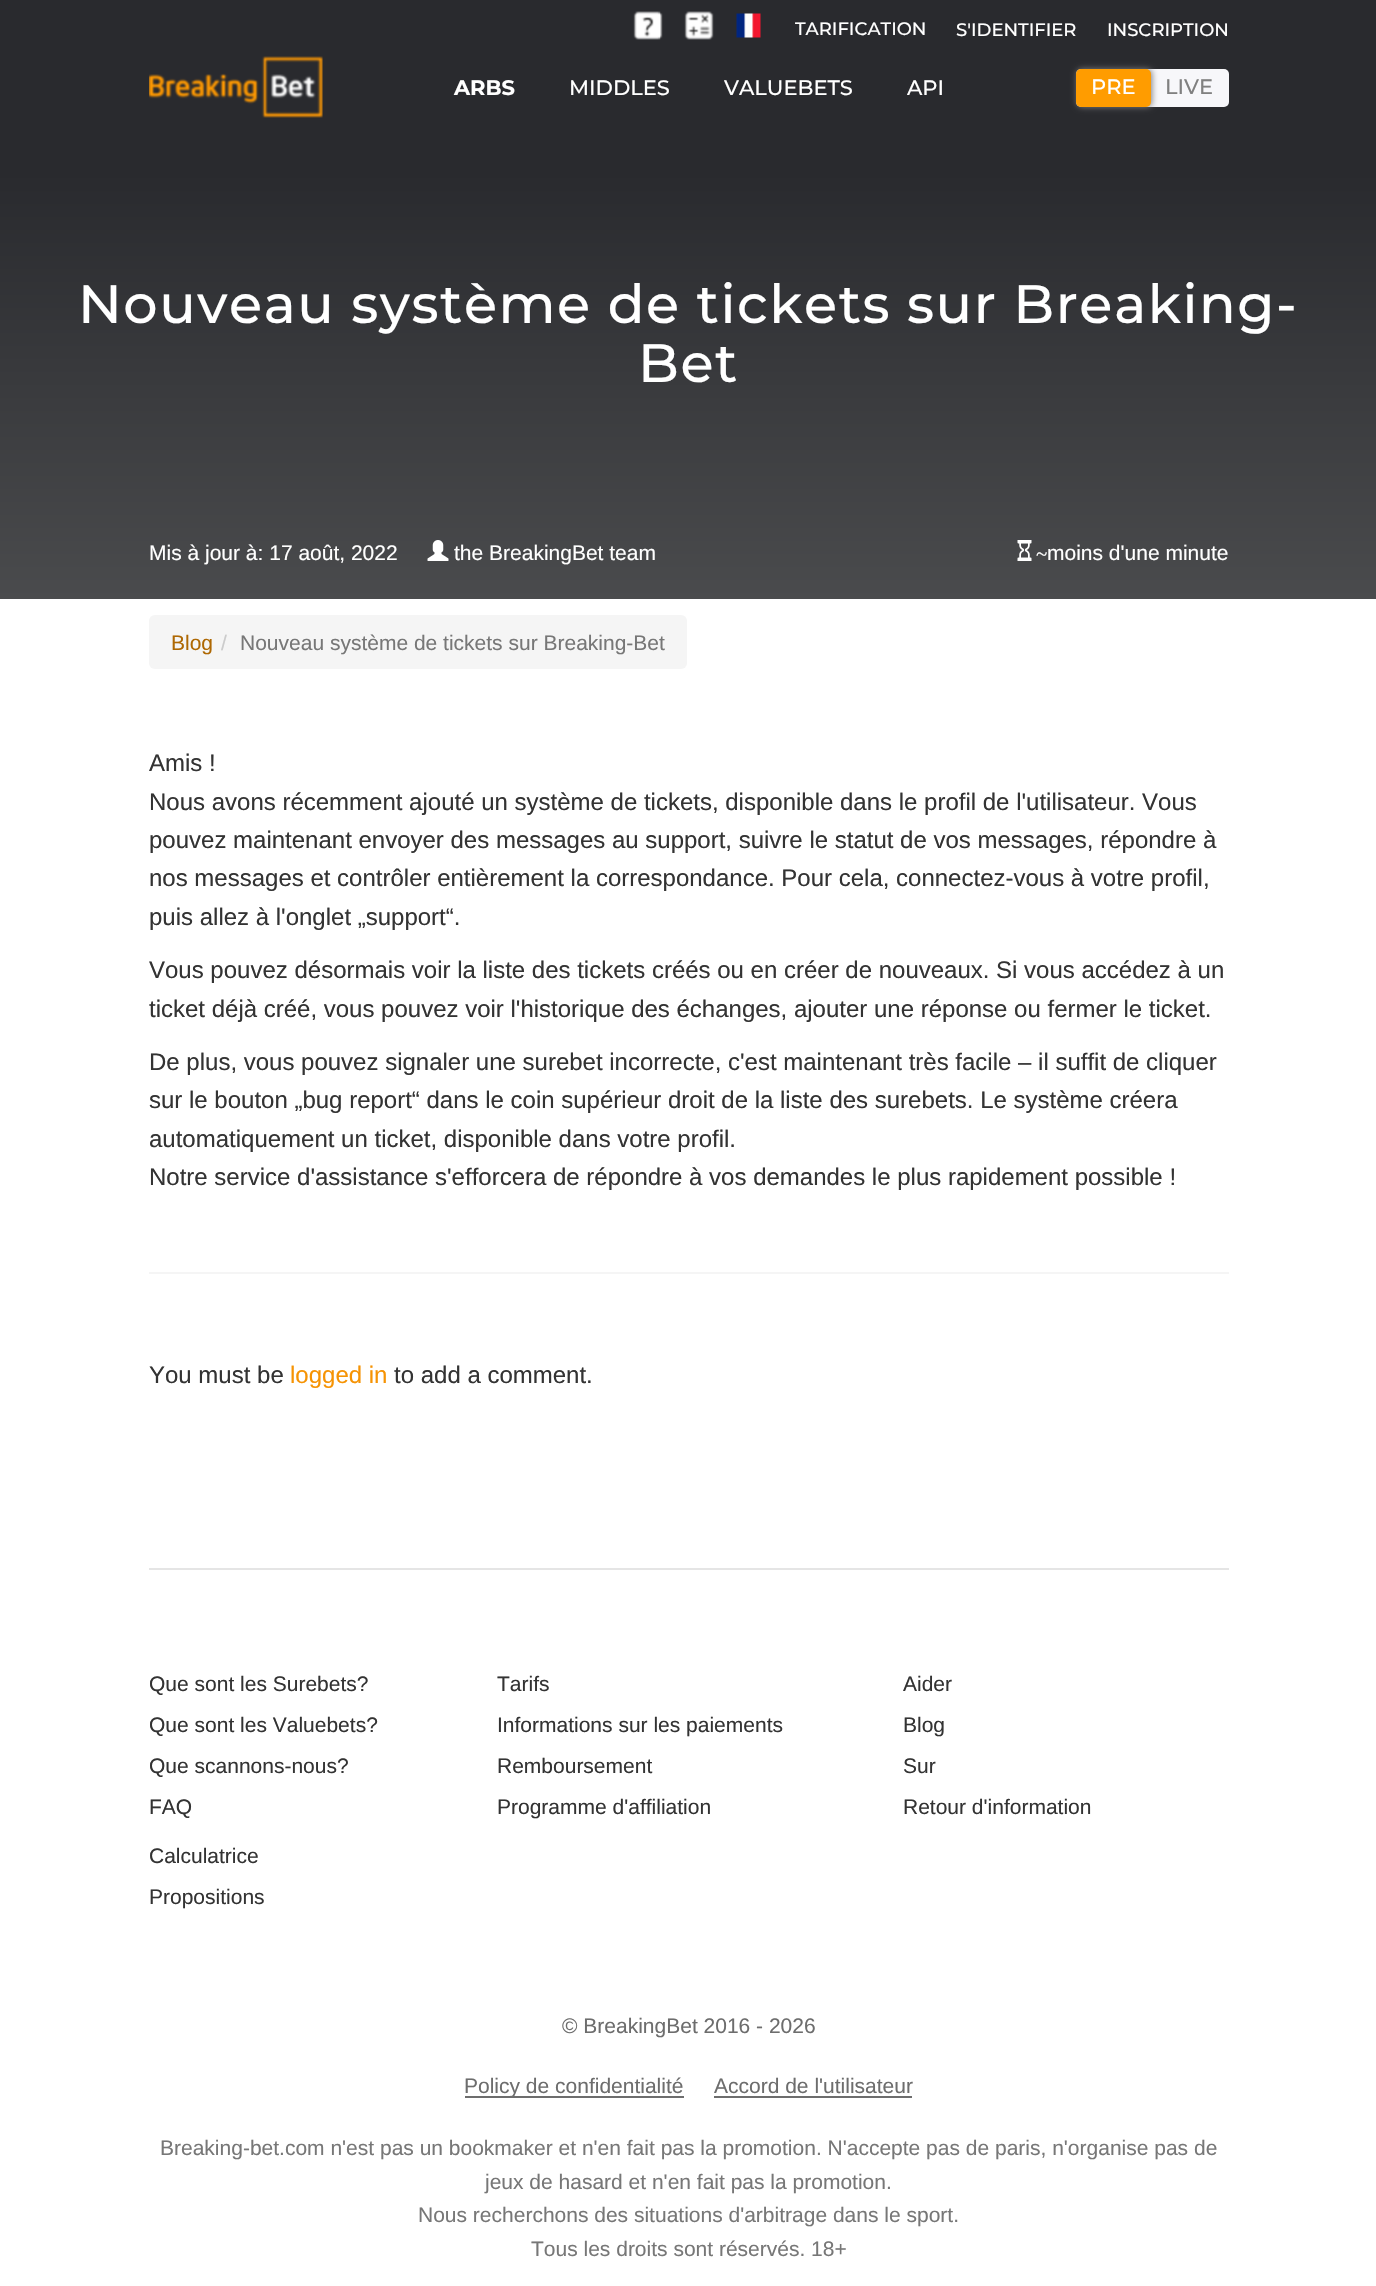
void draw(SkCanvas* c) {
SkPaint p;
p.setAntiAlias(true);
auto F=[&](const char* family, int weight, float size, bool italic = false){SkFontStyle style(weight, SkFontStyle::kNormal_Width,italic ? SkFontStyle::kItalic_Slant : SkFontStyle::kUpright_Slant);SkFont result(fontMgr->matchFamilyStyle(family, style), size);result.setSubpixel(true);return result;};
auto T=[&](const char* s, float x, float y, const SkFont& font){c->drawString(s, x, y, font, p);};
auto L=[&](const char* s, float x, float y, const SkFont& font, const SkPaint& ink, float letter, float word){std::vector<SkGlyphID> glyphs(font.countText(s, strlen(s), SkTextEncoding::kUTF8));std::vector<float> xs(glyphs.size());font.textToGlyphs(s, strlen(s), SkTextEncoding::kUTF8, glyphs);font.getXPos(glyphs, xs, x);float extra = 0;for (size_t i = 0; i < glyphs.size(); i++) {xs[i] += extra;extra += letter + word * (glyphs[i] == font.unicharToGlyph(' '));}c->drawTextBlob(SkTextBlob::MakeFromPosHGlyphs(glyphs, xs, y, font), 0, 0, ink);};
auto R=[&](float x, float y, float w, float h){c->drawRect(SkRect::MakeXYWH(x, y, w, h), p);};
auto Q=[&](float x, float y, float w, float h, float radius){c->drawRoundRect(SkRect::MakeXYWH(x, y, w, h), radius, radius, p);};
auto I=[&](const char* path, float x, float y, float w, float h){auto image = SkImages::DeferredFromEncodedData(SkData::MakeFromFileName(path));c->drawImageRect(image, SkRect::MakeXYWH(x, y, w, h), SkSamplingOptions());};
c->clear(0xffffffff);
p.setColor(0xff292a2e);
R(0,0,1376,125);
I("1.png",633,11,30,29);
I("2.png",684,11,30,29);
I("3.png",736,13,25,25);
auto f1 = F("Montserrat",500,18);
p.setColor(0xffffffff);
T("TARIFICATION",795,35,f1);
T("S'IDENTIFIER",956,36,f1);
T("INSCRIPTION",1107,36,f1);
I("4.png",149,56,174,62);
auto f2 = F("Montserrat",700,21);
T("ARBS",454,95,f2);
auto f3 = F("Montserrat",500,21);
T("MIDDLES",569,95,f3);
T("VALUEBETS",724,95,f3);
T("API",907,95,f3);
p.setColor(0xfff7f7fa);
Q(1076,69,153,38,5);
p.setColor(0xff808080);
p.setMaskFilter(SkMaskFilter::MakeBlur(kNormal_SkBlurStyle, 3));
c->drawRoundRect(SkRect::MakeXYWH(1077,69,75,38),5,5,p);
p.setMaskFilter(nullptr);
p.setColor(0xffff9c00);
Q(1076,69,75,38,5);
p.setColor(0xffffffff);
T("PRE",1091,94,f3);
p.setColor(0xff808080);
T("LIVE",1165,94,f3);
{
const SkColor colors[] = {0xff292a2e,0xff4a4b4d};
const float stops[] = {.1,1};
const SkPoint ends[] = {{689,124}, {689,599}};
p.setShader(SkGradientShader::MakeLinear(ends, colors, stops, 2, SkTileMode::kClamp));
p.setAlpha(255);
}
R(0,125,1376,474);
auto f4 = F("Montserrat",500,54);
p.setShader(nullptr);
p.setColor(0xffffffff);
L("Nouveau système de tickets sur Breaking-",78,323,f4,p,1.5,0);
L("Bet",638,382,f4,p,1.5,0);
auto f5 = F("Liberation Sans",400,21);
T("Mis à jour à: 17 août, 2022",149,560,f5);
I("5.png",427,540,22,21);
T("the BreakingBet team",454,560,f5);
I("6.png",1017,540,15,21);
auto f6 = F("Liberation Serif",400,21);
T("~",1036,561,f6);
T("moins d'une minute",1047,560,f5);
p.setColor(0xfff5f5f5);
Q(149,615,538,54,6);
p.setColor(0xffae6803);
T("Blog",171,650,f5);
p.setColor(0xffcccccc);
T("/",221,650,f5);
p.setColor(0xff777777);
T("Nouveau système de tickets sur Breaking-Bet",240,650,f5);
auto f7 = F("Liberation Sans",400,24);
p.setColor(0xff333333);
T("Amis !",149,771,f7);
T("Nous avons récemment ajouté un système de tickets, disponible dans le profil de l'utilisateur. Vous",149,810,f7);
T("pouvez maintenant envoyer des messages au support, suivre le statut de vos messages, répondre à",149,848,f7);
T("nos messages et contrôler entièrement la correspondance. Pour cela, connectez-vous à votre profil,",149,886,f7);
T("puis allez à l'onglet „support“.",149,925,f7);
T("Vous pouvez désormais voir la liste des tickets créés ou en créer de nouveaux. Si vous accédez à un",149,978,f7);
T("ticket déjà créé, vous pouvez voir l'historique des échanges, ajouter une réponse ou fermer le ticket.",149,1017,f7);
T("De plus, vous pouvez signaler une surebet incorrecte, c'est maintenant très facile – il suffit de cliquer",149,1070,f7);
T("sur le bouton „bug report“ dans le coin supérieur droit de la liste des surebets. Le système créera",149,1108,f7);
T("automatiquement un ticket, disponible dans votre profil.",149,1147,f7);
T("Notre service d'assistance s'efforcera de répondre à vos demandes le plus rapidement possible !",149,1185,f7);
p.setColor(0xfff5f5f5);
R(149,1272,1080,2);
p.setColor(0xff333333);
T("You must be",149,1383,f7);
p.setColor(0xfff69303);
T("logged in",290,1383,f7);
p.setColor(0xff333333);
T("to add a comment.",394,1383,f7);
p.setColor(0xffe5e5e5);
R(149,1568,1080,2);
p.setColor(0xff333333);
T("Que sont les Surebets?",149,1691,f5);
T("Que sont les Valuebets?",149,1732,f5);
T("Que scannons-nous?",149,1773,f5);
T("FAQ",149,1814,f5);
T("Tarifs",497,1691,f5);
T("Informations sur les paiements",497,1732,f5);
T("Remboursement",497,1773,f5);
T("Programme d'affiliation",497,1814,f5);
T("Aider",903,1691,f5);
T("Blog",903,1732,f5);
T("Sur",903,1773,f5);
T("Retour d'information",903,1814,f5);
T("Calculatrice",149,1863,f5);
T("Propositions",149,1904,f5);
p.setColor(0xff6d6d6d);
T("© BreakingBet 2016 - 2026",562,2033,f5);
R(465,2096,219,2);
T("Policy de confidentialité",464,2093,f5);
T("Accord de l'utilisateur",714,2093,f5);
R(714,2096,198,2);
p.setColor(0xff777777);
T("Breaking-bet.com n'est pas un bookmaker et n'en fait pas la promotion. N'accepte pas de paris, n'organise pas de",160,2155,f5);
T("jeux de hasard et n'en fait pas la promotion.",485,2189,f5);
T("Nous recherchons des situations d'arbitrage dans le sport.",418,2222,f5);
T("Tous les droits sont réservés. 18+",531,2256,f5);
}
